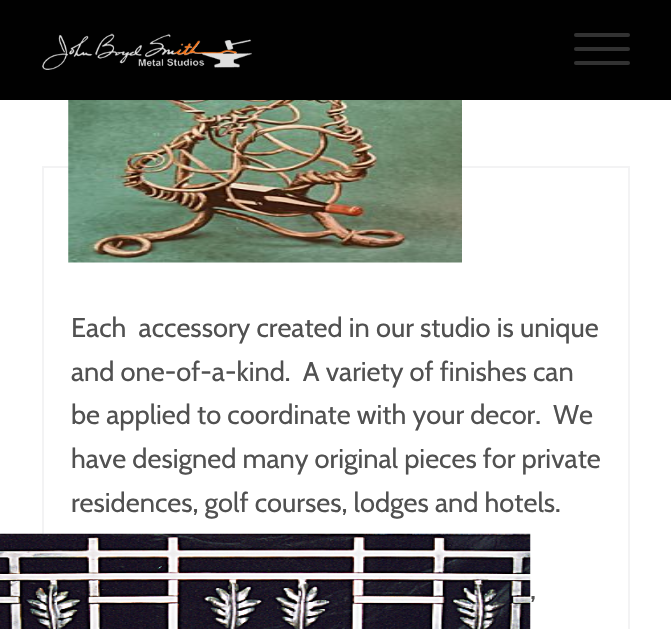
void draw(SkCanvas* c) {
SkPaint p;
p.setAntiAlias(true);
auto F=[&](const char* family, int weight, float size, bool italic = false){SkFontStyle style(weight, SkFontStyle::kNormal_Width,italic ? SkFontStyle::kItalic_Slant : SkFontStyle::kUpright_Slant);SkFont result(fontMgr->matchFamilyStyle(family, style), size);result.setSubpixel(true);return result;};
auto T=[&](const char* s, float x, float y, const SkFont& font){c->drawString(s, x, y, font, p);};
auto R=[&](float x, float y, float w, float h){c->drawRect(SkRect::MakeXYWH(x, y, w, h), p);};
auto Q=[&](float x, float y, float w, float h, float radius){c->drawRoundRect(SkRect::MakeXYWH(x, y, w, h), radius, radius, p);};
auto I=[&](const char* path, float x, float y, float w, float h){auto image = SkImages::DeferredFromEncodedData(SkData::MakeFromFileName(path));c->drawImageRect(image, SkRect::MakeXYWH(x, y, w, h), SkSamplingOptions());};
c->clear(0xffffffff);
p.setColor(0xff010101);
R(0,0,671,100);
I("1.png",42,33,210,37);
p.setColor(0xff323232);
Q(574,47,56,4,2);
Q(574,33,56,4,2);
Q(574,61,56,4,2);
p.setStroke(true);
p.setStrokeWidth(2);
p.setColor(0xfff3f3f4);
c->drawRect(SkRect::MakeXYWH(43,167,586,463),p);
I("2.png",68,100,394,163);
I("3.png",0,533,531,96);
auto f1 = F("Cabin",400,27.25);
p.setStroke(false);
p.setColor(0xff515151);
T("Each  accessory created in our studio is unique",71,337,f1);
T("and one-of-a-kind.  A variety of finishes can",71,381,f1);
T("be applied to coordinate with your decor.  We",71,424,f1);
T("have designed many original pieces for private",71,468,f1);
T("residences, golf courses, lodges and hotels.",71,512,f1);
T(",",530,599,f1);
}
